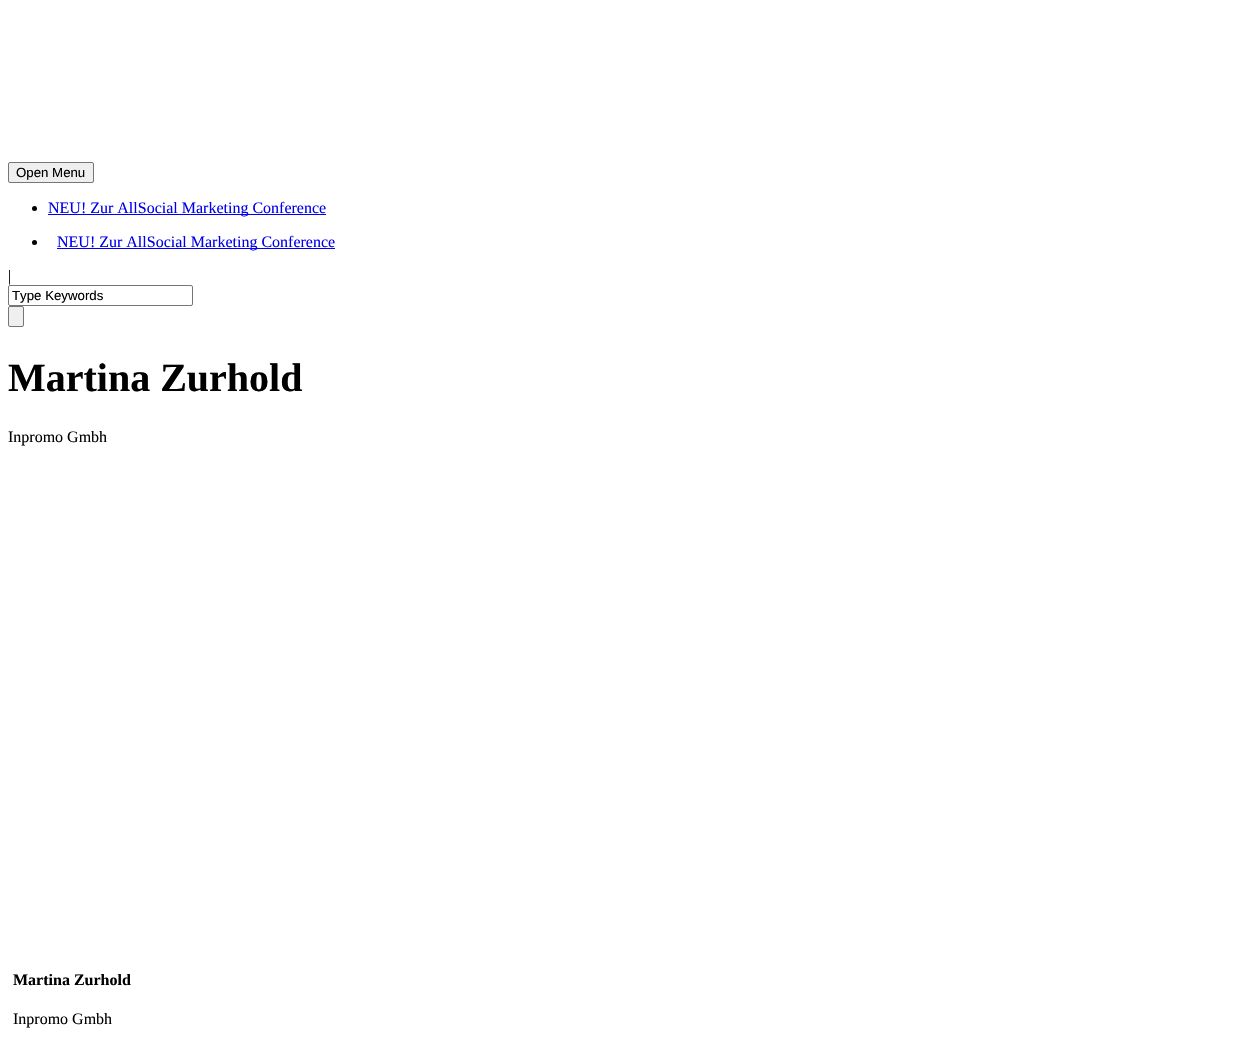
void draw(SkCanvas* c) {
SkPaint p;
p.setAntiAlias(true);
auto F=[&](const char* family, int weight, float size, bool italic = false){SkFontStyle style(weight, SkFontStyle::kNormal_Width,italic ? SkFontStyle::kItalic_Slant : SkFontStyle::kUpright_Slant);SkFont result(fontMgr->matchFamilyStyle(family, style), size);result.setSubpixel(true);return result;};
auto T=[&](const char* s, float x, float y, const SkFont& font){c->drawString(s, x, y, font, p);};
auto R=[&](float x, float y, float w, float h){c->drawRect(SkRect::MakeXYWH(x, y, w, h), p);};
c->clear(0xffffffff);
p.setColor(0xffefefef);
c->drawRoundRect(SkRect::MakeXYWH(8.5,162.5,85,20),1.5,1.5,p);
p.setStroke(true);
p.setStrokeWidth(1);
p.setColor(0xff767676);
c->drawRoundRect(SkRect::MakeXYWH(8.5,162.5,85,20),1.5,1.5,p);
auto f1 = F("Liberation Sans",400,13.25);
p.setStroke(false);
p.setColor(0xff000000);
T("Open Menu",16,177,f1);
c->drawCircle(34.5,208.5,2.5,p);
p.setColor(0xff0000ee);
R(48,214,278,1);
auto f2 = F("Liberation Serif",400,16);
T("NEU! Zur AllSocial Marketing Conference",48,213,f2);
p.setColor(0xff000000);
c->drawCircle(34.5,242.5,2.5,p);
p.setColor(0xff0000ee);
R(57,248,278,1);
T("NEU! Zur AllSocial Marketing Conference",57,247,f2);
p.setColor(0xff000000);
T("|",8,281,f2);
p.setStroke(true);
p.setColor(0xff767676);
c->drawRoundRect(SkRect::MakeXYWH(8.5,285.5,184,20),1.5,1.5,p);
p.setStroke(false);
p.setColor(0xff000000);
T("Type Keywords",12,300,f1);
p.setColor(0xffefefef);
c->drawRoundRect(SkRect::MakeXYWH(8.5,306.5,15,20),1.5,1.5,p);
p.setStroke(true);
p.setColor(0xff767676);
c->drawRoundRect(SkRect::MakeXYWH(8.5,306.5,15,20),1.5,1.5,p);
auto f3 = F("Liberation Serif",700,40);
p.setStroke(false);
p.setColor(0xff000000);
T("Martina Zurhold",8,391,f3);
T("Inpromo Gmbh",8,442,f2);
auto f4 = F("Liberation Serif",700,16);
T("Martina Zurhold",13,985,f4);
T("Inpromo Gmbh",13,1024,f2);
}
